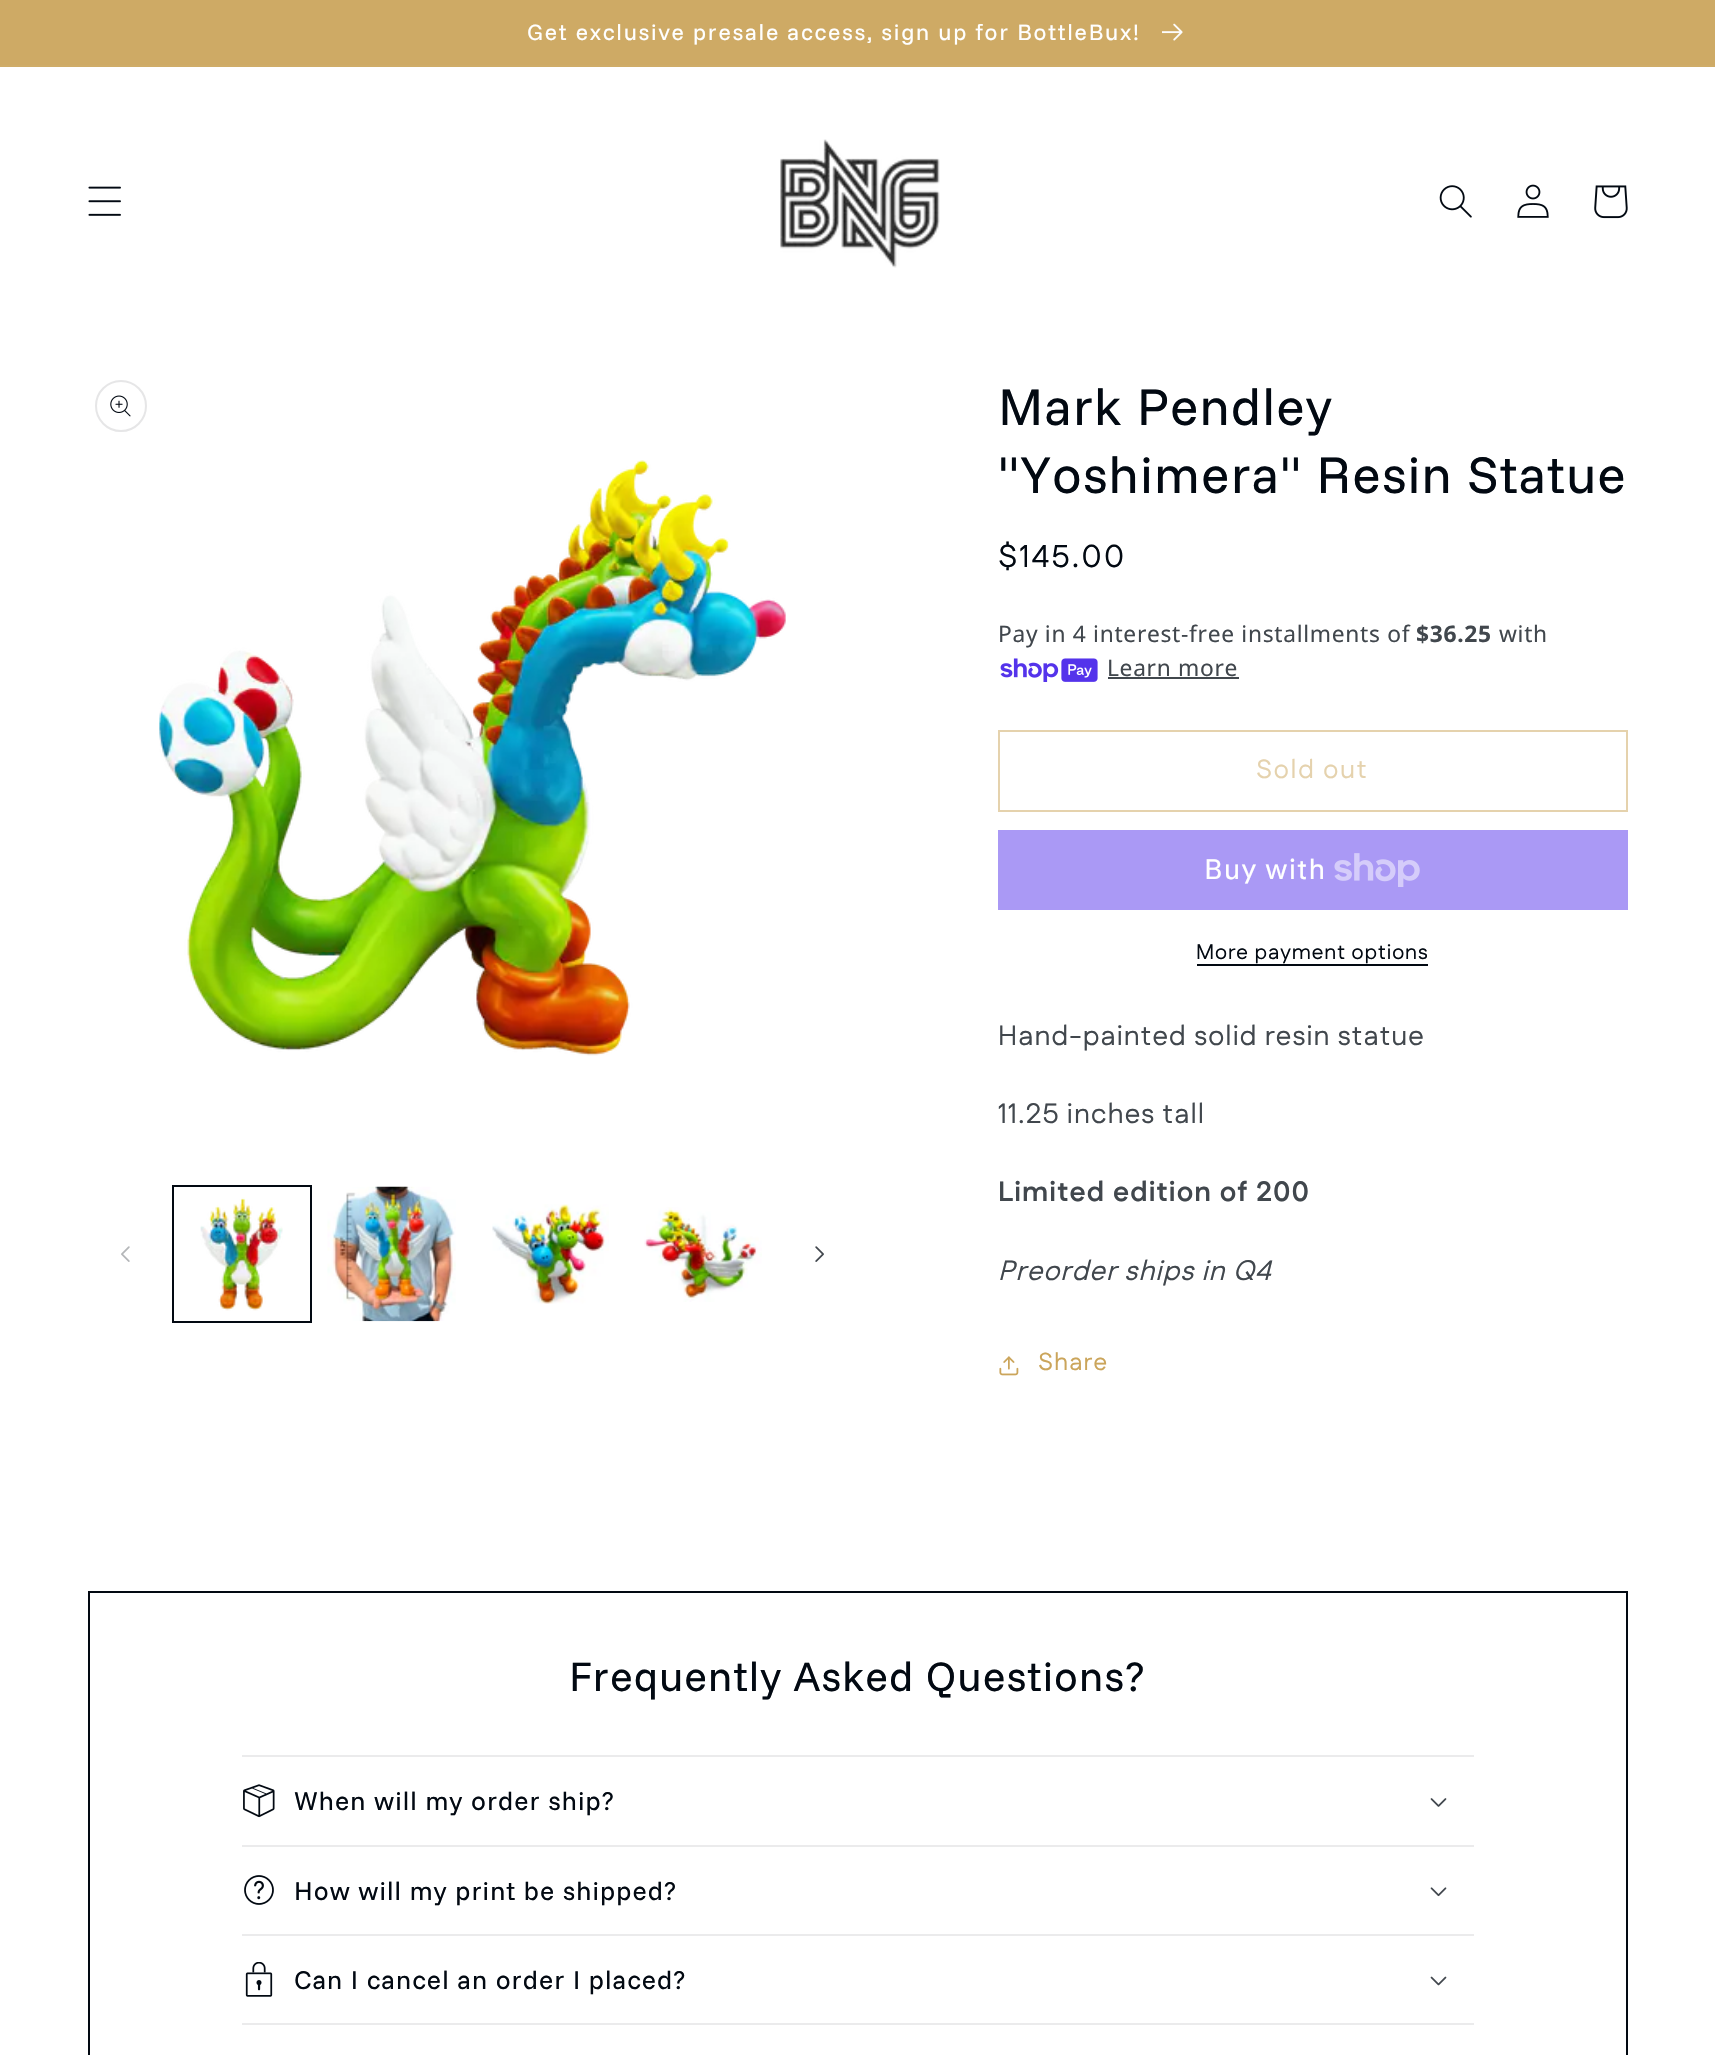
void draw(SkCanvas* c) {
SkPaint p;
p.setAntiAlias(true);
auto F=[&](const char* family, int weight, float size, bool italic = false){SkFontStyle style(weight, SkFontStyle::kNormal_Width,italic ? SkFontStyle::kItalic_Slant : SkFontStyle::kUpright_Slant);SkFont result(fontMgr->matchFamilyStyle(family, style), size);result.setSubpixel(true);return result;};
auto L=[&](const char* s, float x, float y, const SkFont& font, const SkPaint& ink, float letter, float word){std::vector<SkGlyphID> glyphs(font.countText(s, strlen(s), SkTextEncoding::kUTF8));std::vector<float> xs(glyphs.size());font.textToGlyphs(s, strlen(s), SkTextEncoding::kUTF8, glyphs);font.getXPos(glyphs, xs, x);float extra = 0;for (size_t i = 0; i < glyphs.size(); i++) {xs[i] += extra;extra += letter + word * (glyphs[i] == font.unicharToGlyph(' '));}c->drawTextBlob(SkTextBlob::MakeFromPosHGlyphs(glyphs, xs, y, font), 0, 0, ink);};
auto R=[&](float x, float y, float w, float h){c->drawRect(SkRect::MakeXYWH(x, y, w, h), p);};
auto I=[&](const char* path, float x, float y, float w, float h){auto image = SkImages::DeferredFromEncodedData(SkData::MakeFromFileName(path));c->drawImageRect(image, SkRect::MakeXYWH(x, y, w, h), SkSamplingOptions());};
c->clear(0xffffffff);
p.setColor(0xffcfac68);
R(0,65,1715,2);
p.setColor(0xffceaa65);
R(0,0,1715,65);
auto f1 = F("Funnel Sans",400,22.75);
p.setColor(0xffffffff);
L("Get exclusive presale access, sign up for BottleBux!",527,40,f1,p,1.75,0);
I("1.png",1162,23,21,18);
I("2.png",88,186,33,30);
I("3.png",780,139,160,129);
I("4.png",1439,185,33,33);
I("5.png",1517,184,32,34);
I("6.png",1594,185,34,34);
p.setStroke(true);
p.setStrokeWidth(2);
p.setColor(0xffe6e6e7);
c->drawCircle(121,406,25,p);
I("7.png",110,395,21,22);
I("8.png",159,460,627,596);
I("9.png",121,1246,9,16);
p.setColor(0xff020912);
c->drawRect(SkRect::MakeXYWH(173,1186,138,136),p);
I("10.png",200,1197,83,114);
I("11.png",327,1186,129,136);
I("12.png",492,1204,117,100);
I("13.png",644,1207,118,95);
I("14.png",815,1246,9,16);
auto f2 = F("Funnel Sans",400,52.5);
p.setStroke(false);
L("Mark Pendley",998,425,f2,p,1.05,0);
L("\"Yoshimera\" Resin Statue",998,493,f2,p,1.05,0);
auto f3 = F("Fustat",400,31.5);
L("$145.00",998,567,f3,p,2.25,0);
auto f4 = F("Noto Sans",400,22.75);
p.setColor(0xff41474d);
L("Pay in 4 interest-free installments of",998,642,f4,p,.7,0);
auto f5 = F("Noto Sans",700,22.75);
L("$36.25",1416,642,f5,p,.7,0);
L("with",1499,642,f4,p,.7,0);
I("15.png",1000,658,98,24);
L("Learn more",1107,676,f4,p,.7,0);
R(1108,677,131,2);
p.setStroke(true);
p.setColor(0xffe5d2ad);
c->drawRect(SkRect::MakeXYWH(999,731,628,80),p);
auto f6 = F("Fustat",400,26.25);
p.setStroke(false);
L("Sold out",1256,778,f6,p,1.75,0);
p.setColor(0xffaa99f5);
R(998,830,630,80);
auto f7 = F("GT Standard",400,28);
p.setColor(0xffffffff);
L("Buy with",1204,879,f7,p,1.05,0);
I("16.png",1334,853,86,34);
auto f8 = F("Fustat",400,21);
p.setColor(0xff020912);
L("More payment options",1196,959,f8,p,.9,0);
R(1197,964,231,2);
auto f9 = F("Fustat",400,28);
p.setColor(0xff41474d);
L("Hand-painted solid resin statue",998,1045,f9,p,1.05,0);
L("11.25 inches tall",998,1123,f9,p,1.05,0);
auto f10 = F("Fustat",700,28);
L("Limited edition of 200",998,1201,f10,p,1.05,0);
auto f11 = F("Fustat",400,28,true);
L("Preorder ships in Q4",998,1280,f11,p,1.05,0);
I("17.png",999,1356,20,20);
auto f12 = F("Fustat",400,24.5);
p.setColor(0xffcba55b);
L("Share",1038,1370,f12,p,1.05,0);
p.setStroke(true);
p.setColor(0xff020912);
c->drawRect(SkRect::MakeXYWH(89,1592,1538,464),p);
auto f13 = F("Funnel Sans",400,42);
p.setStroke(false);
L("Frequently Asked Questions?",569,1691,f13,p,1.05,0);
p.setColor(0xffebebec);
R(242,1755,1232,2);
R(242,1845,1232,2);
I("18.png",243,1784,32,34);
auto f14 = F("Funnel Sans",400,26.25);
p.setColor(0xff020912);
L("When will my order ship?",294,1810,f14,p,1.05,0);
I("19.png",1430,1798,17,9);
p.setColor(0xffebebec);
R(242,1934,1232,2);
I("20.png",244,1875,30,30);
p.setColor(0xff020912);
L("How will my print be shipped?",294,1900,f14,p,1.05,0);
I("21.png",1430,1887,17,10);
p.setColor(0xffebebec);
R(242,2023,1232,2);
I("22.png",245,1962,28,35);
p.setColor(0xff020912);
L("Can I cancel an order I placed?",294,1989,f14,p,1.05,0);
I("23.png",1430,1976,17,10);
}
